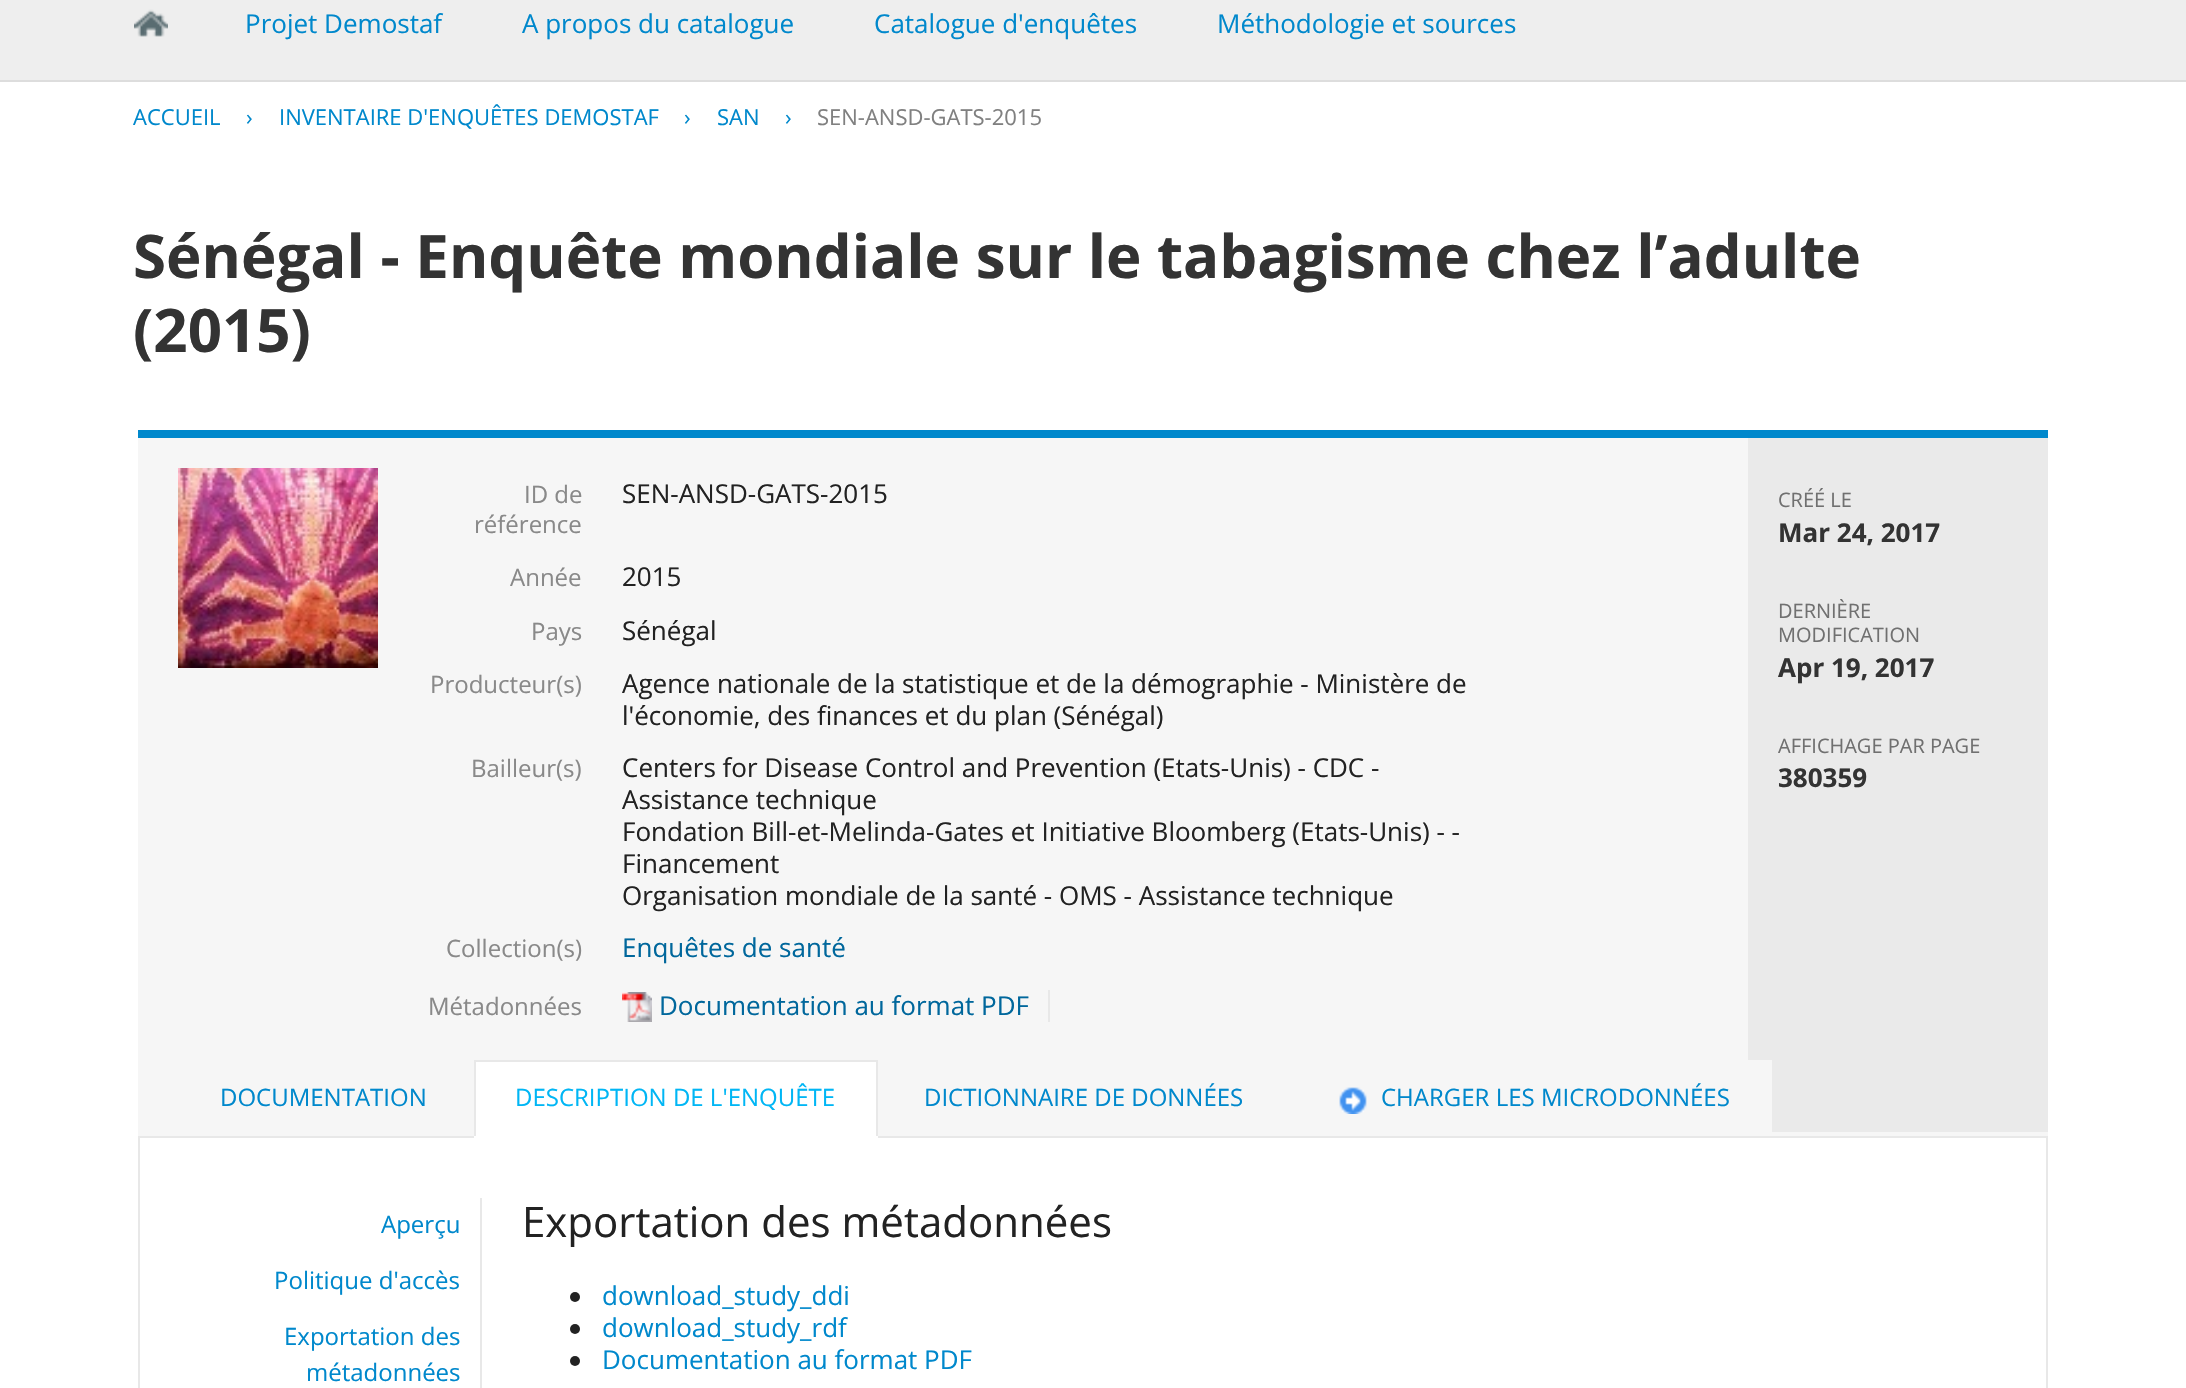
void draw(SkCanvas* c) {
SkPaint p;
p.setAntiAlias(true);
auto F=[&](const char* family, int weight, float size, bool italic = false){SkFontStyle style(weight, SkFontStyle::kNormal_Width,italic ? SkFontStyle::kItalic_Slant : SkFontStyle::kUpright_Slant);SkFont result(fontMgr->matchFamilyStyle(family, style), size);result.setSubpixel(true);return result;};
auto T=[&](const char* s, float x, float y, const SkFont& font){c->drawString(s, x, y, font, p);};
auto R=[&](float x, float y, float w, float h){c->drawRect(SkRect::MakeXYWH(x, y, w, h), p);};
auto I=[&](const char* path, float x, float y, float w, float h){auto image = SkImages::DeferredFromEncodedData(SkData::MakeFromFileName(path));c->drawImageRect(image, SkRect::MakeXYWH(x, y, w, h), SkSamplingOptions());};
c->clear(0xffffffff);
p.setColor(0xffeeeeee);
R(0,0,2186,80);
p.setColor(0xffdddddd);
R(0,80,2186,2);
I("1.png",134,9,34,28);
auto f1 = F("Open Sans",400,26);
p.setColor(0xff0088cc);
T("Projet Demostaf",245,33,f1);
T("A propos du catalogue",522,33,f1);
T("Catalogue d'enquêtes",874,33,f1);
T("Méthodologie et sources",1217,33,f1);
auto f2 = F("Open Sans",400,22);
T("ACCUEIL",133,125,f2);
T("›",246,125,f2);
T("INVENTAIRE D'ENQUÊTES DEMOSTAF",279,125,f2);
T("›",684,125,f2);
T("SAN",717,125,f2);
T("›",785,125,f2);
p.setColor(0xff808080);
T("SEN-ANSD-GATS-2015",817,125,f2);
auto f3 = F("Open Sans",700,60);
p.setColor(0xff333333);
T("Sénégal - Enquête mondiale sur le tabagisme chez l’adulte",133,278,f3);
T("(2015)",133,352,f3);
p.setColor(0xfff6f6f6);
R(138,438,1610,694);
p.setColor(0xff0088cc);
R(138,430,1910,8);
I("2.png",178,468,200,200);
auto f4 = F("Open Sans",400,24);
p.setColor(0xff898989);
T("ID de",524,503,f4);
T("référence",474,533,f4);
p.setColor(0xff222222);
T("SEN-ANSD-GATS-2015",622,503,f1);
p.setColor(0xff898989);
T("Année",510,586,f4);
p.setColor(0xff222222);
T("2015",622,586,f1);
p.setColor(0xff898989);
T("Pays",531,640,f4);
p.setColor(0xff222222);
T("Sénégal",622,640,f1);
p.setColor(0xff898989);
T("Producteur(s)",430,693,f4);
p.setColor(0xff222222);
T("Agence nationale de la statistique et de la démographie - Ministère de",622,693,f1);
T("l'économie, des finances et du plan (Sénégal)",622,725,f1);
p.setColor(0xff898989);
T("Bailleur(s)",471,777,f4);
p.setColor(0xff222222);
T("Centers for Disease Control and Prevention (Etats-Unis) - CDC -",622,777,f1);
T("Assistance technique",622,809,f1);
T("Fondation Bill-et-Melinda-Gates et Initiative Bloomberg (Etats-Unis) - -",622,841,f1);
T("Financement",622,873,f1);
T("Organisation mondiale de la santé - OMS - Assistance technique",622,905,f1);
p.setColor(0xff898989);
T("Collection(s)",446,957,f4);
p.setColor(0xff00679c);
T("Enquêtes de santé",622,957,f1);
p.setColor(0xff898989);
T("Métadonnées",428,1015,f4);
p.setColor(0xffe8e8e8);
R(1048,990,2,32);
I("3.png",622,992,30,30);
p.setColor(0xff00679c);
T("Documentation au format PDF",659,1015,f1);
p.setColor(0xffeaeaea);
R(1748,438,300,694);
auto f5 = F("Open Sans",400,20);
p.setColor(0xff707070);
T("CRÉÉ LE",1778,507,f5);
auto f6 = F("Open Sans",700,26);
p.setColor(0xff333333);
T("Mar 24, 2017",1778,542,f6);
p.setColor(0xff707070);
T("DERNIÈRE",1778,618,f5);
T("MODIFICATION",1778,642,f5);
p.setColor(0xff333333);
T("Apr 19, 2017",1778,677,f6);
p.setColor(0xff707070);
T("AFFICHAGE PAR PAGE",1778,753,f5);
p.setColor(0xff333333);
T("380359",1778,787,f6);
p.setColor(0xfff6f6f6);
R(138,1132,1910,4);
p.setColor(0xffe8e8e8);
R(138,1136,1910,2);
p.setColor(0xff0088cc);
T("DOCUMENTATION",220,1106,f4);
p.setColor(0xffffffff);
R(474,1062,404,76);
p.setColor(0xffe8e8e8);
R(474,1060,404,2);
R(876,1060,2,76);
R(474,1060,2,76);
p.setColor(0xff00b6f5);
T("DESCRIPTION DE L'ENQUÊTE",515,1106,f4);
p.setColor(0xff0088cc);
T("DICTIONNAIRE DE DONNÉES",924,1106,f4);
p.setColor(0xfff6f6f6);
R(1748,1060,24,72);
I("4.png",1339,1087,28,27);
p.setColor(0xff0088cc);
T("CHARGER LES MICRODONNÉES",1381,1106,f4);
p.setColor(0xffe8e8e8);
R(2046,1138,2,250);
R(138,1138,2,250);
p.setColor(0xff0088cc);
T("Aperçu",381,1233,f4);
T("Politique d'accès",274,1289,f4);
T("Exportation des",284,1345,f4);
T("métadonnées",306,1381,f4);
p.setColor(0xffe8e8e8);
R(480,1198,2,190);
auto f7 = F("Open Sans",400,42);
p.setColor(0xff222222);
T("Exportation des métadonnées",522,1237,f7);
c->drawCircle(575,1297,5,p);
p.setColor(0xff0088cc);
T("download_study_ddi",602,1305,f1);
p.setColor(0xff222222);
c->drawCircle(575,1329,5,p);
p.setColor(0xff0088cc);
T("download_study_rdf",602,1337,f1);
p.setColor(0xff222222);
c->drawCircle(575,1361,5,p);
p.setColor(0xff0088cc);
T("Documentation au format PDF",602,1369,f1);
}
